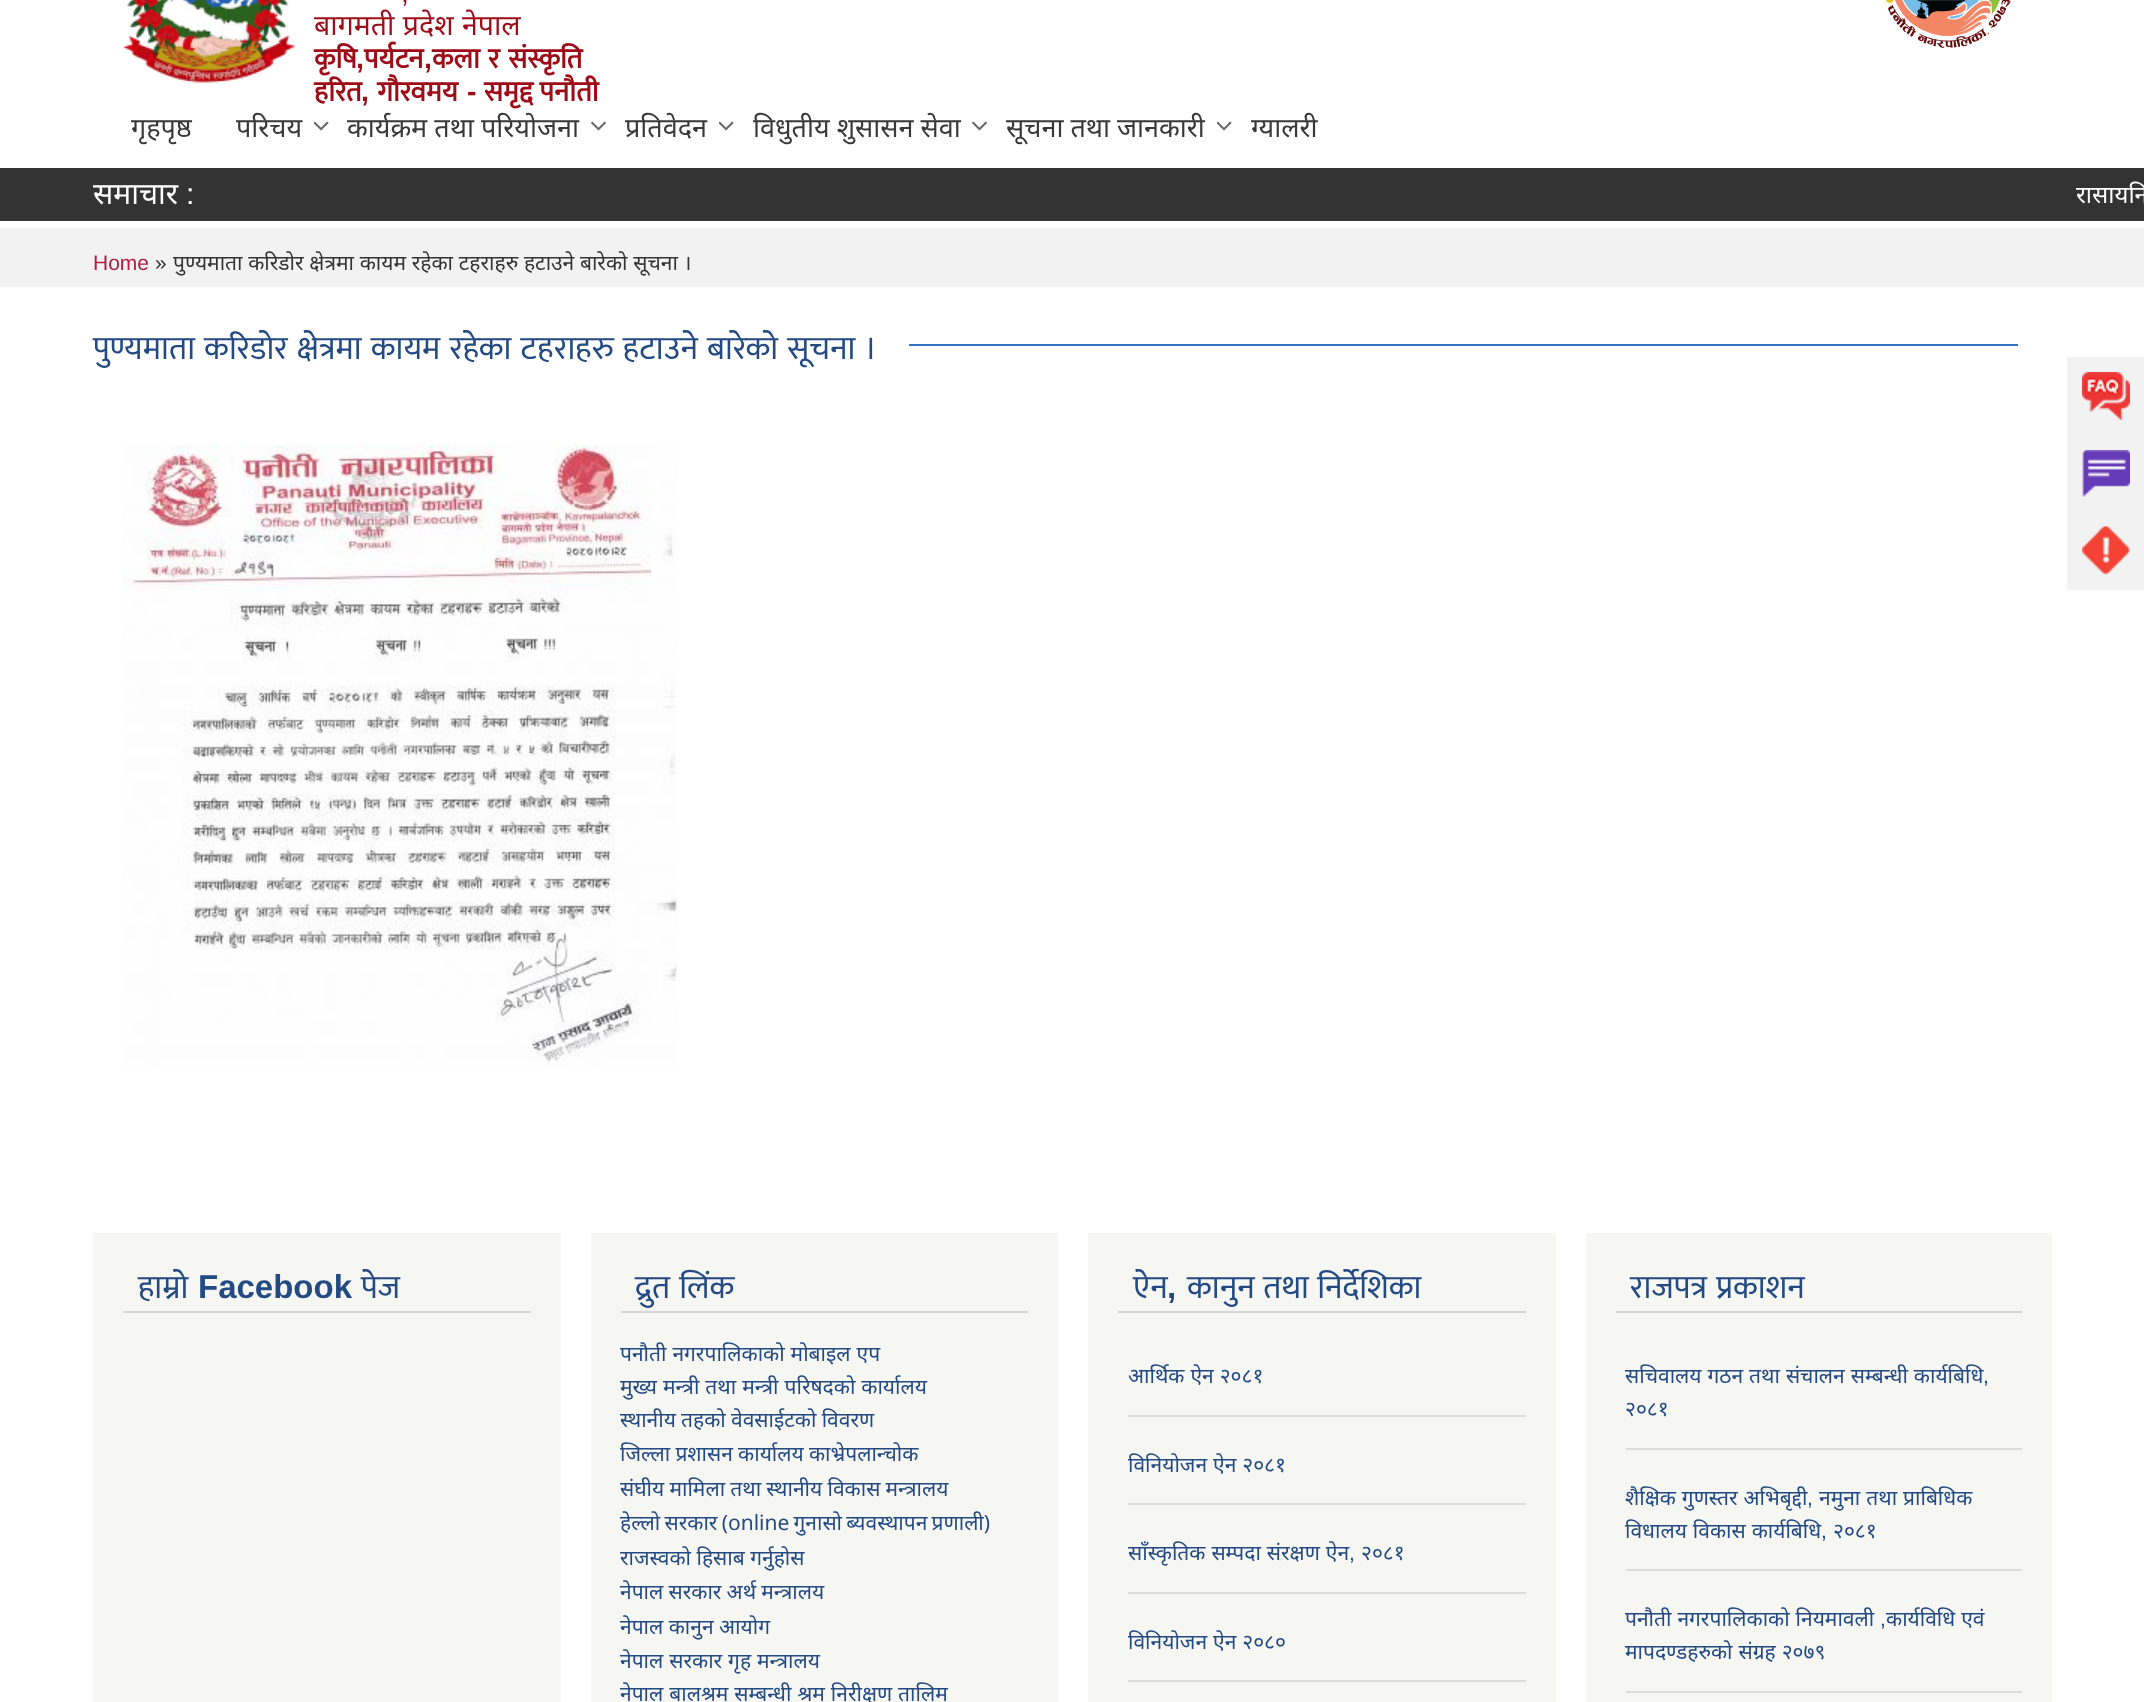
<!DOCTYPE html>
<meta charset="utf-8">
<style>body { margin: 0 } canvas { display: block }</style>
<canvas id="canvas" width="2144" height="1702"></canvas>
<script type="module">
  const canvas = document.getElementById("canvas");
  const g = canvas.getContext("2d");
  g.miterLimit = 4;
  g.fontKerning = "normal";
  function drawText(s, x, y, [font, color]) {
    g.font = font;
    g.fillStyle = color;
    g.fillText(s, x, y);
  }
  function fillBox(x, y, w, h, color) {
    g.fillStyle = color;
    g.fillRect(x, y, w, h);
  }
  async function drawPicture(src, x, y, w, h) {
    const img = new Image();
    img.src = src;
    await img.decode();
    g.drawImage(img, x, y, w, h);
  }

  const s1 = ["28.5px Liberation Sans", "#9E0C18"];
  const s2 = ["28.5px Noto Sans", "#9E0C18"];
  const s3 = ["bold 28.5px Mukta", "#9E0C18"];
  const s4 = ["bold 28.5px Liberation Sans", "#9E0C18"];
  const s5 = ["27px Noto Sans", "#393939"];
  const s6 = ["30px Noto Sans", "#FFFFFF"];
  const s7 = ["30px Liberation Sans", "#FFFFFF"];
  const s8 = ["24px Noto Sans", "#FFFFFF"];
  const s9 = ["21px Liberation Sans", "#B21C42"];
  const s10 = ["21px Liberation Sans", "#333333"];
  const s11 = ["21px Noto Sans", "#333333"];
  const s12 = ["33px Mukta", "#234A83"];
  const s13 = ["bold 33px Liberation Sans", "#234A83"];
  const s14 = ["21px Noto Sans", "#234A83"];
  const s15 = ["21px Liberation Sans", "#234A83"];

  fillBox(0, 0, 2144, 1702, "#FFFFFF");
  await drawPicture("pic1.png", 123, 0, 173, 83);
  drawText(",", 401, 2, s1);
  g.wordSpacing = "1px";
  drawText("बागमती प्रदेश नेपाल", 314, 35, s2);
  g.wordSpacing = "0px";
  drawText("कृषि", 314, 68, s3);
  drawText(",", 356, 68, s4);
  drawText("पर्यटन", 364, 68, s3);
  drawText(",", 424, 68, s4);
  g.wordSpacing = "2px";
  drawText("कला र संस्कृति", 432, 68, s3);
  g.wordSpacing = "0px";
  drawText("हरित", 314, 101, s3);
  drawText("गौरवमय", 377, 101, s3);
  drawText("-", 467, 101, s4);
  drawText("समृद्द पनौती", 484, 101, s3);
  drawText(",", 361, 101, s4);
  await drawPicture("pic2.png", 1886, 0, 125, 48);
  drawText("गृहपृष्ठ", 131, 137, s5);
  drawText("परिचय", 236, 137, s5);
  await drawPicture("pic3.png", 314, 121, 15, 10);
  drawText("कार्यक्रम तथा परियोजना", 347, 137, s5);
  await drawPicture("pic4.png", 591, 121, 15, 10);
  drawText("प्रतिवेदन", 625, 137, s5);
  await drawPicture("pic3.png", 719, 121, 15, 10);
  drawText("विधुतीय शुसासन सेवा", 753, 137, s5);
  await drawPicture("pic4.png", 972, 121, 15, 10);
  drawText("सूचना तथा जानकारी", 1006, 137, s5);
  await drawPicture("pic3.png", 1217, 121, 15, 10);
  drawText("ग्यालरी", 1251, 137, s5);
  fillBox(0, 168, 2144, 53, "#333333");
  drawText("समाचार", 93, 204, s6);
  drawText(":", 186, 204, s7);
  drawText("रासायनि", 2076, 203, s8);
  fillBox(0, 228, 2144, 59, "#F2F2F2");
  drawText("Home", 93, 270, s9);
  drawText("»", 155, 270, s10);
  g.wordSpacing = "0.25px";
  drawText("पुण्यमाता करिडोर क्षेत्रमा कायम रहेका टहराहरु हटाउने बारेको सूचना ।", 173, 270, s11);
  g.wordSpacing = "1.75px";
  drawText("पुण्यमाता करिडोर क्षेत्रमा कायम रहेका टहराहरु हटाउने बारेको सूचना ।", 93, 359, s12);
  fillBox(909, 344, 1109, 2, "#376FC2");
  await drawPicture("pic5.png", 123, 444, 554, 623);
  fillBox(93, 1233, 468, 469, "#F6F6F2");
  fillBox(123, 1311, 408, 2, "#D6D6D6");
  g.wordSpacing = "0px";
  drawText("हाम्रो", 138, 1298, s12);
  drawText("Facebook", 198, 1298, s13);
  drawText("पेज", 361, 1298, s12);
  fillBox(591, 1233, 467, 469, "#F6F6F2");
  fillBox(621, 1311, 407, 2, "#D6D6D6");
  g.wordSpacing = "1.75px";
  drawText("द्रुत लिंक", 635, 1298, s12);
  g.wordSpacing = "0.5px";
  drawText("पनौती नगरपालिकाको मोबाइल एप", 620, 1361, s14);
  drawText("मुख्य मन्त्री तथा मन्त्री परिषदको कार्यालय", 620, 1394, s14);
  g.wordSpacing = "-0.25px";
  drawText("स्थानीय तहको वेवसाईटको विवरण", 620, 1427, s14);
  drawText("जिल्ला प्रशासन कार्यालय काभ्रेपलान्चोक", 620, 1461, s14);
  drawText("संघीय मामिला तथा स्थानीय विकास मन्त्रालय", 620, 1496, s14);
  g.wordSpacing = "-1.25px";
  drawText("हेल्लो सरकार (online गुनासो ब्यवस्थापन प्रणाली)", 620, 1530, s14);
  g.wordSpacing = "0px";
  drawText("राजस्वको हिसाब गर्नुहोस", 620, 1565, s14);
  g.wordSpacing = "-0.25px";
  drawText("नेपाल सरकार अर्थ मन्त्रालय", 620, 1599, s14);
  g.wordSpacing = "0px";
  drawText("नेपाल कानुन आयोग", 620, 1634, s14);
  g.wordSpacing = "0.5px";
  drawText("नेपाल सरकार गृह मन्त्रालय", 620, 1668, s14);
  drawText("नेपाल बालश्रम सम्बन्धी श्रम निरीक्षण तालिम", 620, 1701, s14);
  fillBox(1088, 1233, 468, 469, "#F6F6F2");
  fillBox(1118, 1311, 408, 2, "#D6D6D6");
  g.wordSpacing = "0px";
  drawText("ऐन", 1133, 1298, s12);
  drawText(",", 1167, 1298, s13);
  g.wordSpacing = "1px";
  drawText("कानुन तथा निर्देशिका", 1187, 1298, s12);
  fillBox(1128, 1415, 398, 2, "#DADDD8");
  g.wordSpacing = "0.5px";
  drawText("आर्थिक ऐन २०८१", 1128, 1383, s14);
  fillBox(1128, 1503, 398, 2, "#DADDD8");
  drawText("विनियोजन ऐन २०८१", 1128, 1472, s14);
  fillBox(1128, 1592, 398, 2, "#DADDD8");
  drawText("साँस्कृतिक सम्पदा संरक्षण ऐन", 1128, 1560, s14);
  g.wordSpacing = "0px";
  drawText(",", 1349, 1560, s15);
  drawText("२०८१", 1361, 1560, s14);
  fillBox(1128, 1680, 398, 2, "#DADDD8");
  g.wordSpacing = "0.5px";
  drawText("विनियोजन ऐन २०८०", 1128, 1649, s14);
  fillBox(1586, 1233, 466, 469, "#F6F6F2");
  fillBox(1616, 1311, 406, 2, "#D6D6D6");
  g.wordSpacing = "1.75px";
  drawText("राजपत्र प्रकाशन", 1630, 1298, s12);
  fillBox(1626, 1448, 396, 2, "#DADDD8");
  g.wordSpacing = "0.5px";
  drawText("सचिवालय गठन तथा संचालन सम्बन्धी कार्यबिधि", 1625, 1383, s14);
  g.wordSpacing = "0px";
  drawText(",", 1983, 1383, s15);
  drawText("२०८१", 1625, 1416, s14);
  fillBox(1626, 1569, 396, 2, "#DADDD8");
  g.wordSpacing = "0.5px";
  drawText("शैक्षिक गुणस्तर अभिबृद्दी", 1625, 1505, s14);
  g.wordSpacing = "0px";
  drawText(",", 1807, 1505, s15);
  g.wordSpacing = "0.5px";
  drawText("नमुना तथा प्राबिधिक", 1819, 1505, s14);
  drawText("विधालय विकास कार्यबिधि", 1625, 1538, s14);
  g.wordSpacing = "0px";
  drawText(",", 1821, 1538, s15);
  drawText("२०८१", 1833, 1538, s14);
  fillBox(1626, 1691, 396, 2, "#DADDD8");
  g.wordSpacing = "0.5px";
  drawText("पनौती नगरपालिकाको नियमावली", 1625, 1626, s14);
  g.wordSpacing = "0px";
  drawText(",", 1880, 1626, s15);
  g.wordSpacing = "0.5px";
  drawText("कार्यविधि एवं", 1886, 1626, s14);
  drawText("मापदण्डहरुको संग्रह २०७९", 1625, 1659, s14);
  fillBox(2067, 357, 77, 233, "#F2F2F2");
  await drawPicture("pic6.png", 2082, 372, 48, 48);
  await drawPicture("pic7.png", 2082, 450, 48, 47);
  await drawPicture("pic8.png", 2082, 526, 48, 49);
</script>
